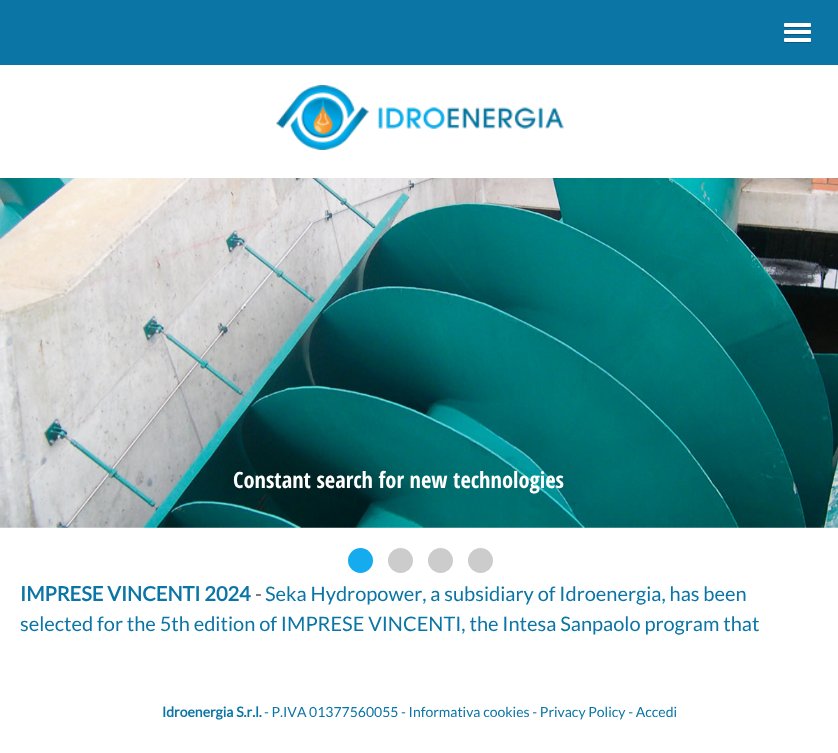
<!DOCTYPE html>
<meta charset="utf-8">
<style>body { margin: 0 } canvas { display: block }</style>
<canvas id="canvas" width="838" height="753"></canvas>
<script type="module">
  const canvas = document.getElementById("canvas");
  const g = canvas.getContext("2d");
  g.miterLimit = 4;
  g.fontKerning = "normal";
  function drawText(s, x, y, [font, color]) {
    g.font = font;
    g.fillStyle = color;
    g.fillText(s, x, y);
  }
  function fillBox(x, y, w, h, color) {
    g.fillStyle = color;
    g.fillRect(x, y, w, h);
  }
  function fillRounded(x, y, w, h, r, color) {
    g.fillStyle = color;
    g.beginPath();
    g.roundRect(x, y, w, h, r);
    g.fill();
  }
  async function drawPicture(src, x, y, w, h) {
    const img = new Image();
    img.src = src;
    await img.decode();
    g.drawImage(img, x, y, w, h);
  }

  const s1 = ["bold 22.5px Open Sans Condensed", "#FFFFFF"];
  const s2 = ["bold 20px Lato", "#0B75A5"];
  const s3 = ["20px Lato", "#555555"];
  const s4 = ["20px Lato", "#0B75A5"];
  const s5 = ["bold 14px Lato", "#0B75A5"];
  const s6 = ["14px Lato", "#0B75A5"];

  fillBox(0, 0, 838, 753, "#FFFFFF");
  fillBox(0, 0, 838, 65, "#0B75A5");
  g.fillStyle = "#08587C";
  g.beginPath();
  g.moveTo(784, 26);
  g.bezierCurveTo(784, 29, 785.5, 28, 789, 28);
  g.lineTo(806, 28);
  g.bezierCurveTo(809.5, 28, 811, 29, 811, 26);
  g.lineTo(810, 26);
  g.lineTo(785, 26);
  g.closePath();
  g.fill();
  fillRounded(784, 23, 27, 4, 1, "#FFFFFF");
  g.fillStyle = "#08587C";
  g.beginPath();
  g.moveTo(784, 33.5);
  g.bezierCurveTo(784, 36, 786.5, 35, 789, 35);
  g.lineTo(806, 35);
  g.bezierCurveTo(808.5, 35, 811, 36, 811, 33.5);
  g.lineTo(810, 33.5);
  g.lineTo(785, 33.5);
  g.closePath();
  g.fill();
  fillRounded(784, 30, 27, 4, 1, "#FFFFFF");
  g.fillStyle = "#08587C";
  g.beginPath();
  g.moveTo(784, 41);
  g.bezierCurveTo(784, 44, 785.5, 43, 789, 43);
  g.lineTo(806, 43);
  g.bezierCurveTo(809.5, 43, 811, 44, 811, 41);
  g.lineTo(810, 41);
  g.lineTo(785, 41);
  g.closePath();
  g.fill();
  fillRounded(784, 38, 27, 4, 1, "#FFFFFF");
  await drawPicture("pic1.png", 276, 85, 288, 65);
  await drawPicture("pic2.png", 0, 178, 838, 350);
  drawText("Constant search for new technologies", 233, 488, s1);
  g.fillStyle = "#15ABEF";
  g.beginPath();
  g.arc(360.5, 560.5, 12.5, 0, Math.PI * 2);
  g.fill();
  g.fillStyle = "#CCCCCC";
  g.beginPath();
  g.arc(400.5, 560.5, 12.5, 0, Math.PI * 2);
  g.fill();
  g.beginPath();
  g.arc(440.5, 560.5, 12.5, 0, Math.PI * 2);
  g.fill();
  g.beginPath();
  g.arc(480.5, 560.5, 12.5, 0, Math.PI * 2);
  g.fill();
  drawText("IMPRESE VINCENTI 2024", 20, 601, s2);
  drawText("-", 255, 601, s3);
  drawText("Seka Hydropower, a subsidiary of Idroenergia, has been", 265, 601, s4);
  drawText("selected for the 5th edition of IMPRESE VINCENTI, the Intesa Sanpaolo program that", 20, 631, s4);
  drawText("Idroenergia S.r.l.", 162, 717, s5);
  drawText("- P.IVA 01377560055 - Informativa cookies - Privacy Policy - Accedi", 264, 717, s6);
</script>
